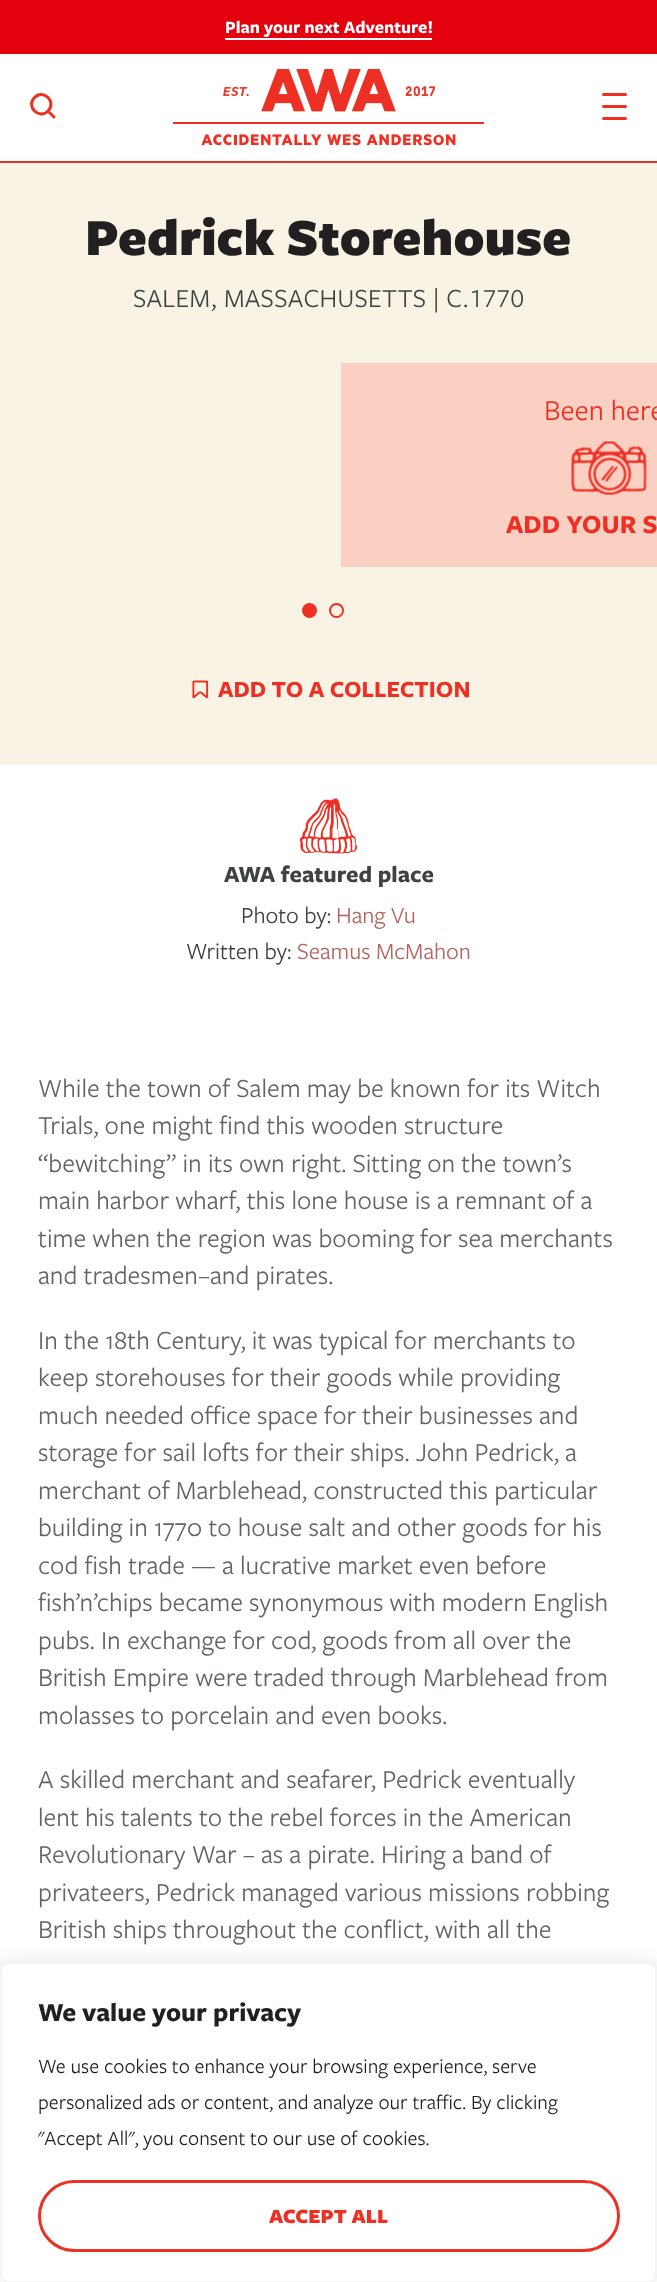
<!DOCTYPE html>
<meta charset="utf-8">
<style>body { margin: 0 } canvas { display: block }</style>
<canvas id="canvas" width="657" height="2282"></canvas>
<script type="module">
  const canvas = document.getElementById("canvas");
  const g = canvas.getContext("2d");
  g.miterLimit = 4;
  g.fontKerning = "normal";
  function drawText(s, x, y, [font, color]) {
    g.font = font;
    g.fillStyle = color;
    g.fillText(s, x, y);
  }
  function fillBox(x, y, w, h, color) {
    g.fillStyle = color;
    g.fillRect(x, y, w, h);
  }
  function fillRounded(x, y, w, h, r, color) {
    g.fillStyle = color;
    g.beginPath();
    g.roundRect(x, y, w, h, r);
    g.fill();
  }
  async function drawPicture(src, x, y, w, h) {
    const img = new Image();
    img.src = src;
    await img.decode();
    g.drawImage(img, x, y, w, h);
  }

  const s1 = ["bold 18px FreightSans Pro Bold", "#FFFFFF"];
  const s2 = ["900 54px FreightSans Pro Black", "#231F20"];
  const s3 = ["27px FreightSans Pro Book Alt", "#3E4240"];
  const s4 = ["30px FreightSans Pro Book", "#EE3024"];
  const s5 = ["bold 27px FreightSans Pro Bold", "#EE3024"];
  const s6 = ["bold 24px FreightSans Pro Bold", "#EE3024"];
  const s7 = ["bold 24px FreightSans Pro Bold", "#3E4240"];
  const s8 = ["24px FreightSans Pro Book", "#3E4240"];
  const s9 = ["24px FreightSans Pro Book", "#B5635E"];
  const s10 = ["27px FreightSans Pro Book", "#616563"];
  const s11 = ["bold 27px FreightSans Pro Bold", "#231F20"];
  const s12 = ["21px FreightSans Pro Book", "#231F20"];
  const s13 = ["900 21px FreightSans Pro Black", "#EE3024"];

  fillBox(0, 0, 657, 2282, "#FFFFFF");
  fillBox(0, 0, 657, 54, "#E2010D");
  drawText("Plan your next Adventure!", 225, 33, s1);
  fillBox(225, 38, 207, 2, "#FFFFFF");
  fillBox(0, 161, 657, 2, "#EE3024");
  g.beginPath();
  g.moveTo(34.5, 97.5);
  g.bezierCurveTo(43.5, 88.5, 57, 102, 48, 111);
  g.bezierCurveTo(39, 120, 25.5, 106.5, 34.5, 97.5);
  g.closePath();
  g.strokeStyle = "#EE3024";
  g.lineWidth = 3;
  g.stroke();
  g.beginPath();
  g.moveTo(54, 117);
  g.lineTo(49.5, 112.5);
  g.lineCap = "round";
  g.lineJoin = "bevel";
  g.stroke();
  await drawPicture("pic1.png", 173, 69, 311, 77);
  fillRounded(602, 93, 25, 3, 1.5, "#EE3024");
  fillRounded(602, 105, 25, 3, 1.5, "#EE3024");
  fillRounded(602, 117, 25, 3, 1.5, "#EE3024");
  fillBox(0, 163, 657, 602, "#F8F3E4");
  drawText("Pedrick Storehouse", 85, 255, s2);
  g.letterSpacing = "0.3px";
  drawText("SALEM, MASSACHUSETTS | C.1770", 133, 307, s3);
  fillBox(341, 363, 316, 204, "#FAD0C3");
  g.letterSpacing = "0px";
  drawText("Been here", 544, 420, s4);
  await drawPicture("pic2.png", 571, 441, 76, 55);
  drawText("ADD YOUR S", 506, 533, s5);
  g.beginPath();
  g.arc(309.5, 610.5, 6.5, 0, Math.PI * 2);
  g.fill();
  g.lineWidth = 2;
  g.stroke();
  g.beginPath();
  g.arc(336.5, 610.5, 6.5, 0, Math.PI * 2);
  g.stroke();
  await drawPicture("pic3.png", 192, 680, 17, 19);
  drawText("ADD TO A COLLECTION", 218, 697, s6);
  await drawPicture("pic4.png", 299, 798, 58, 56);
  drawText("AWA featured place", 224, 882, s7);
  drawText("Photo by:", 241, 923, s8);
  drawText("Hang Vu", 336, 923, s9);
  drawText("Written by:", 186, 959, s8);
  drawText("Seamus McMahon", 297, 959, s9);
  drawText("While the town of Salem may be known for its Witch", 38, 1097, s10);
  drawText("Trials, one might find this wooden structure", 38, 1134, s10);
  drawText("“bewitching” in its own right. Sitting on the town’s", 38, 1172, s10);
  drawText("main harbor wharf, this lone house is a remnant of a", 38, 1209, s10);
  drawText("time when the region was booming for sea merchants", 38, 1247, s10);
  drawText("and tradesmen–and pirates.", 38, 1284, s10);
  drawText("In the 18th Century, it was typical for merchants to", 38, 1349, s10);
  drawText("keep storehouses for their goods while providing", 38, 1386, s10);
  drawText("much needed office space for their businesses and", 38, 1424, s10);
  drawText("storage for sail lofts for their ships. John Pedrick, a", 38, 1461, s10);
  drawText("merchant of Marblehead, constructed this particular", 38, 1499, s10);
  drawText("building in 1770 to house salt and other goods for his", 38, 1536, s10);
  drawText("cod fish trade — a lucrative market even before", 38, 1574, s10);
  drawText("fish’n’chips became synonymous with modern English", 38, 1611, s10);
  drawText("pubs. In exchange for cod, goods from all over the", 38, 1649, s10);
  drawText("British Empire were traded through Marblehead from", 38, 1686, s10);
  drawText("molasses to porcelain and even books.", 38, 1724, s10);
  drawText("A skilled merchant and seafarer, Pedrick eventually", 38, 1788, s10);
  drawText("lent his talents to the rebel forces in the American", 38, 1826, s10);
  drawText("Revolutionary War – as a pirate. Hiring a band of", 38, 1863, s10);
  drawText("privateers, Pedrick managed various missions robbing", 38, 1901, s10);
  drawText("British ships throughout the conflict, with all the", 38, 1938, s10);
  g.fillStyle = "rgba(172, 171, 171, 0.3)";
  g.filter = "blur(7.5px)";
  g.beginPath();
  g.roundRect(0, 1961, 657, 321, 9);
  g.fill();
  g.filter = "none";
  g.fillStyle = "#FFFFFF";
  g.beginPath();
  g.roundRect(1, 1963, 655, 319, 8);
  g.fill();
  g.strokeStyle = "#F4F4F4";
  g.lineJoin = "miter";
  g.stroke();
  drawText("We value your privacy", 38, 2021, s11);
  drawText("We use cookies to enhance your browsing experience, serve", 38, 2073, s12);
  drawText("personalized ads or content, and analyze our traffic. By clicking", 38, 2109, s12);
  drawText("\"Accept All\", you consent to our use of cookies.", 38, 2145, s12);
  g.beginPath();
  g.roundRect(39.5, 2181.5, 579, 69, 34.5);
  g.strokeStyle = "#EE3024";
  g.lineWidth = 3;
  g.stroke();
  drawText("ACCEPT ALL", 269, 2223, s13);
</script>
